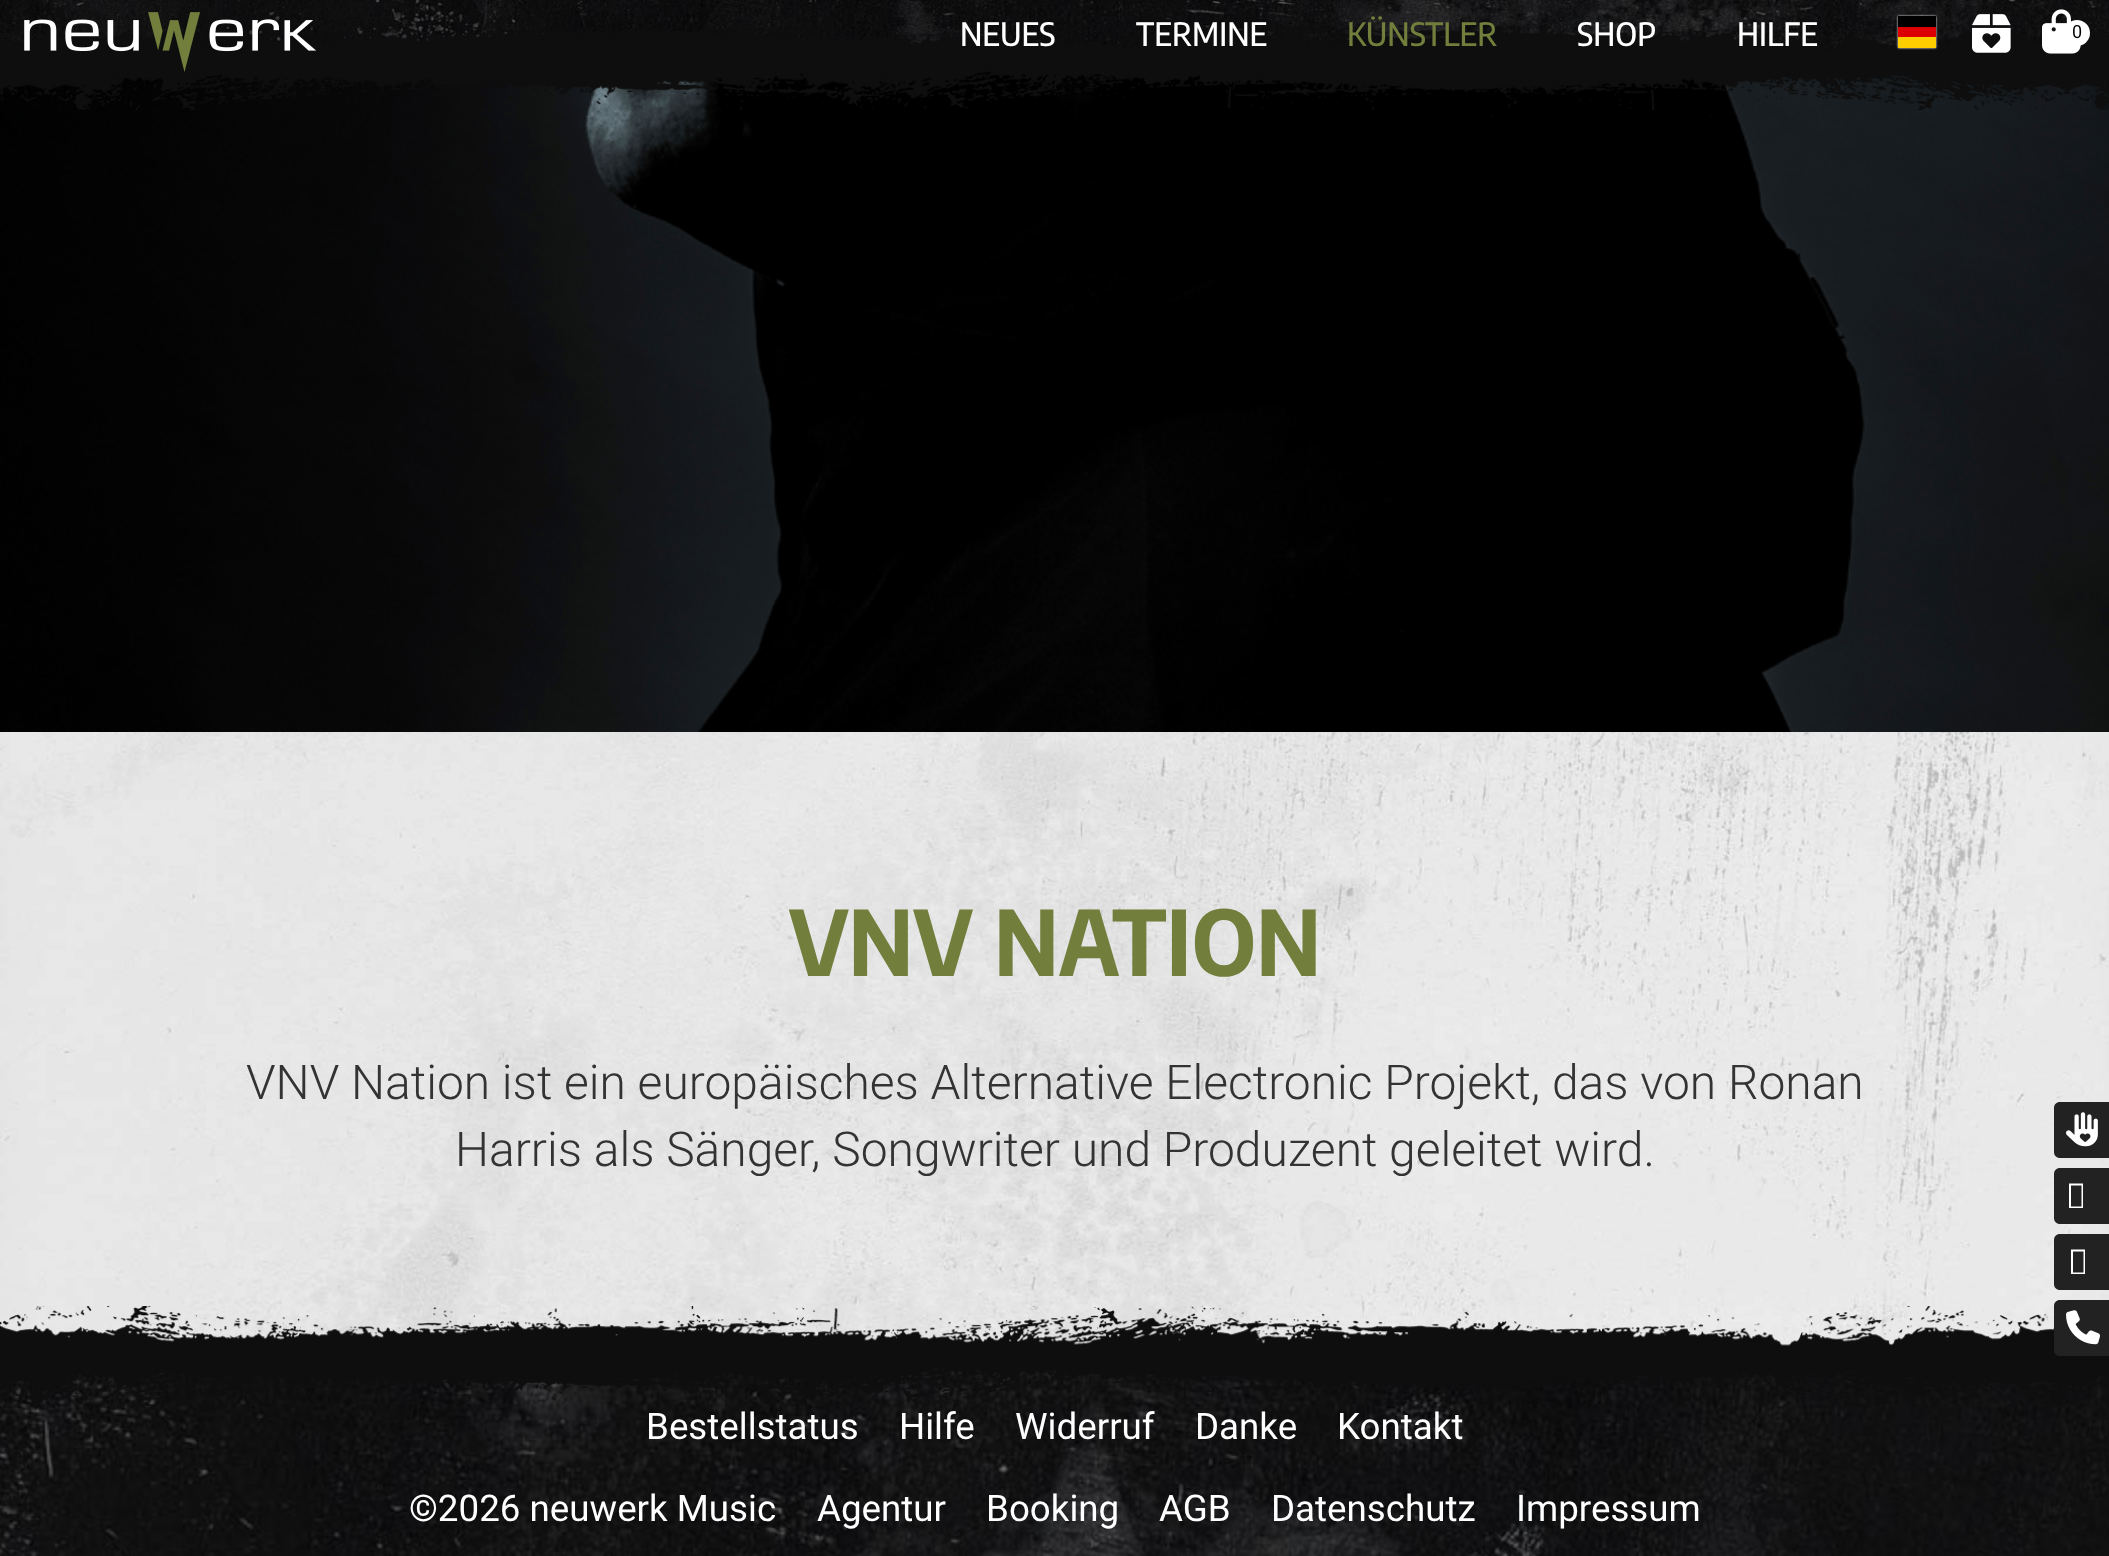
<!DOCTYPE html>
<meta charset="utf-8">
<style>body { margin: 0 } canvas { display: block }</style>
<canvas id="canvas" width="2109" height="1556"></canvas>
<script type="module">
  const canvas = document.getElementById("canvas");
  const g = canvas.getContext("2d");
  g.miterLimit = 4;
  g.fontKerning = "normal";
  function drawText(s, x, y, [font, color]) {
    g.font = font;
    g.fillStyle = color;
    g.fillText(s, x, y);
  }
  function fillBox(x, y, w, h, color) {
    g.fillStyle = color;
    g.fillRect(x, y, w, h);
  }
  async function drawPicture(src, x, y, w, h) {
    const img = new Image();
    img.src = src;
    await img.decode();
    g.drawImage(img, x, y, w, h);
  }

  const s1 = ["500 32px Encode Sans Semi Condensed", "#FFFFFF"];
  const s2 = ["500 32px Encode Sans Semi Condensed", "#717E3C"];
  const s3 = ["18px Roboto", "#000000"];
  const s4 = ["bold 90px Encode Sans Semi Condensed", "#717E3C"];
  const s5 = ["300 48px Roboto", "#333333"];
  const s6 = ["36.75px Roboto", "#FFFFFF"];

  fillBox(0, 0, 2109, 1556, "#FFFFFF");
  await drawPicture("pic1.png", 0, 732, 2109, 614);
  await drawPicture("pic2.png", 0, 0, 2109, 64);
  await drawPicture("pic9.png", 0, 71, 2109, 661);
  g.save();
  g.beginPath();
  g.rect(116, 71, 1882, 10);
  g.clip();
  g.fillStyle = "rgba(0, 0, 0, 0.15)";
  g.filter = "blur(10px)";
  g.beginPath();
  g.rect(0, 0, 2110, 70);
  g.fill();
  g.filter = "none";
  g.restore();
  await drawPicture("pic3.png", 0, 10, 2109, 100);
  await drawPicture("pic4.png", 24, 12, 292, 60);
  drawText("NEUES", 960, 46, s1);
  drawText("TERMINE", 1136, 46, s1);
  drawText("KÜNSTLER", 1347, 46, s2);
  drawText("SHOP", 1577, 46, s1);
  drawText("HILFE", 1737, 46, s1);
  g.filter = "blur(1px)";
  g.beginPath();
  g.rect(1898, 16, 38, 32);
  g.fill();
  g.filter = "none";
  fillBox(1898, 37, 38, 11, "#FFCE00");
  fillBox(1898, 16, 38, 11, "#000000");
  fillBox(1898, 27, 38, 10, "#DD0000");
  g.fillStyle = "#222222";
  g.beginPath();
  g.moveTo(2060, 1102);
  g.lineTo(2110, 1102);
  g.lineTo(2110, 1158);
  g.lineTo(2060, 1158);
  g.bezierCurveTo(2056.5, 1158, 2054, 1155.5, 2054, 1152);
  g.lineTo(2054, 1108);
  g.bezierCurveTo(2054, 1104.5, 2056.5, 1102, 2060, 1102);
  g.closePath();
  g.fill();
  await drawPicture("pic5.png", 2066, 1112, 32, 35);
  g.beginPath();
  g.moveTo(2060, 1168);
  g.lineTo(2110, 1168);
  g.lineTo(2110, 1224);
  g.lineTo(2060, 1224);
  g.bezierCurveTo(2056.5, 1224, 2054, 1221.5, 2054, 1218);
  g.lineTo(2054, 1174);
  g.bezierCurveTo(2054, 1170.5, 2056.5, 1168, 2060, 1168);
  g.closePath();
  g.fill();
  g.fillStyle = "#FFFFFF";
  g.beginPath();
  g.moveTo(2069, 1208);
  g.lineTo(2069, 1183.5);
  g.lineTo(2083, 1183.5);
  g.lineTo(2083, 1208);
  g.closePath();
  g.moveTo(2071, 1206.5);
  g.lineTo(2081.5, 1206.5);
  g.lineTo(2081.5, 1185.5);
  g.lineTo(2071, 1185.5);
  g.closePath();
  g.fill();
  g.fillStyle = "#222222";
  g.beginPath();
  g.moveTo(2060, 1234);
  g.lineTo(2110, 1234);
  g.lineTo(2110, 1290);
  g.lineTo(2060, 1290);
  g.bezierCurveTo(2056.5, 1290, 2054, 1287.5, 2054, 1284);
  g.lineTo(2054, 1240);
  g.bezierCurveTo(2054, 1236.5, 2056.5, 1234, 2060, 1234);
  g.closePath();
  g.fill();
  g.fillStyle = "#FFFFFF";
  g.beginPath();
  g.moveTo(2071, 1274);
  g.lineTo(2071, 1249.5);
  g.lineTo(2085, 1249.5);
  g.lineTo(2085, 1274);
  g.closePath();
  g.moveTo(2073, 1272.5);
  g.lineTo(2083.5, 1272.5);
  g.lineTo(2083.5, 1251.5);
  g.lineTo(2073, 1251.5);
  g.closePath();
  g.fill();
  await drawPicture("pic10.png", 0, 1352, 2109, 204);
  await drawPicture("pic11.png", 0, 1306, 2109, 100);
  g.fillStyle = "#222222";
  g.beginPath();
  g.moveTo(2060, 1300);
  g.lineTo(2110, 1300);
  g.lineTo(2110, 1356);
  g.lineTo(2060, 1356);
  g.bezierCurveTo(2056.5, 1356, 2054, 1353.5, 2054, 1350);
  g.lineTo(2054, 1306);
  g.bezierCurveTo(2054, 1302.5, 2056.5, 1300, 2060, 1300);
  g.closePath();
  g.fill();
  await drawPicture("pic6.png", 2066, 1310, 34, 35);
  await drawPicture("pic7.png", 1972, 14, 39, 39);
  await drawPicture("pic8.png", 2042, 9, 39, 45);
  g.fillStyle = "#FFFFFF";
  g.beginPath();
  g.arc(2077, 33, 13, 0, Math.PI * 2);
  g.fill();
  drawText("0", 2072, 38, s3);
  drawText("VNV NATION", 789, 976, s4);
  drawText("VNV Nation ist ein europäisches Alternative Electronic Projekt, das von Ronan", 246, 1099, s5);
  drawText("Harris als Sänger, Songwriter und Produzent geleitet wird.", 455, 1166, s5);
  drawText("Bestellstatus", 646, 1439, s6);
  drawText("Hilfe", 899, 1439, s6);
  drawText("Widerruf", 1015, 1439, s6);
  drawText("Danke", 1195, 1439, s6);
  drawText("Kontakt", 1337, 1439, s6);
  drawText("©2026 neuwerk Music", 409, 1521, s6);
  drawText("Agentur", 817, 1521, s6);
  drawText("Booking", 986, 1521, s6);
  drawText("AGB", 1159, 1521, s6);
  drawText("Datenschutz", 1271, 1521, s6);
  drawText("Impressum", 1516, 1521, s6);
</script>
